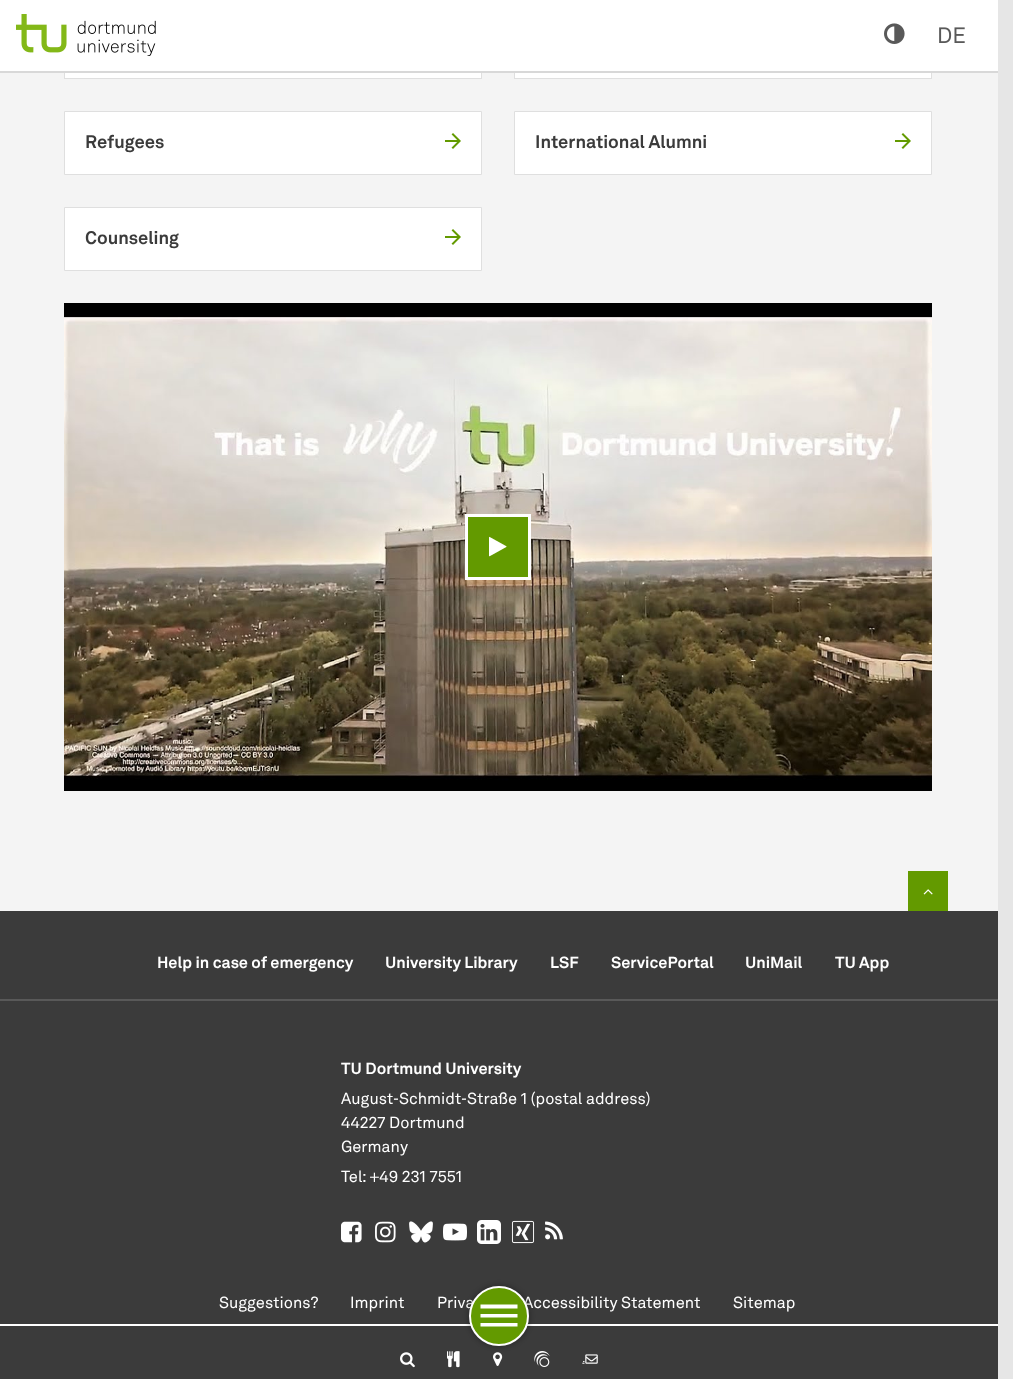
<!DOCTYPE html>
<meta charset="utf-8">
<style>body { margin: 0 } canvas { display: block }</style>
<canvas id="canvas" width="1013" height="1379"></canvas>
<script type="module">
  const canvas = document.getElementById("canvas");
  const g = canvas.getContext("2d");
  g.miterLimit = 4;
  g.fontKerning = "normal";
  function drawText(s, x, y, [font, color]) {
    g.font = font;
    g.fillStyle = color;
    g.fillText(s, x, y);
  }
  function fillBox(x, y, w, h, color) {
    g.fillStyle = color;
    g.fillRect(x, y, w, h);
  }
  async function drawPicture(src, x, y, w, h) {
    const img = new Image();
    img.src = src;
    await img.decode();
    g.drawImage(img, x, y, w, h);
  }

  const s1 = ["bold 18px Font", "#3B3B3B"];
  const s2 = ["bold 16px Font", "#FFFFFF"];
  const s3 = ["16px Font", "#FFFFFF"];

  fillBox(0, 0, 1013, 1379, "#E6E6E6");
  fillBox(0, 73, 998, 838, "#F4F4F4");
  fillBox(65, 73, 416, 5, "#FFFFFF");
  g.strokeStyle = "#DFDFDF";
  g.strokeRect(64.5, 15.5, 417, 63);
  fillBox(515, 73, 416, 5, "#FFFFFF");
  g.strokeRect(514.5, 15.5, 417, 63);
  fillBox(0, 0, 998, 71, "#FFFFFF");
  fillBox(0, 71, 998, 2, "#D8D8D8");
  await drawPicture("pic1.png", 16, 14, 140, 42);
  await drawPicture("pic2.png", 884, 23, 21, 21);
  await drawPicture("pic3.png", 939, 27, 26, 16);
  g.fillStyle = "#FFFFFF";
  g.beginPath();
  g.rect(64.5, 111.5, 417, 63);
  g.fill();
  g.stroke();
  drawText("Refugees", 85, 148, s1);
  await drawPicture("pic4.png", 445, 133, 16, 16);
  g.fillStyle = "#FFFFFF";
  g.beginPath();
  g.rect(514.5, 111.5, 417, 63);
  g.fill();
  g.stroke();
  drawText("International Alumni", 535, 148, s1);
  await drawPicture("pic4.png", 895, 133, 16, 16);
  g.fillStyle = "#FFFFFF";
  g.beginPath();
  g.rect(64.5, 207.5, 417, 63);
  g.fill();
  g.stroke();
  drawText("Counseling", 85, 244, s1);
  await drawPicture("pic4.png", 445, 229, 16, 16);
  await drawPicture("pic5.png", 64, 303, 868, 488);
  g.fillStyle = "#639A00";
  g.beginPath();
  g.rect(466.5, 515.5, 63, 63);
  g.fill();
  g.strokeStyle = "#FFFFFF";
  g.lineWidth = 3;
  g.stroke();
  await drawPicture("pic6.png", 489, 536, 18, 21);
  fillBox(908, 871, 40, 40, "#639A00");
  await drawPicture("pic7.png", 923, 889, 10, 6);
  fillBox(0, 911, 998, 413, "#3B3B3B");
  drawText("Help in case of emergency", 157, 968, s2);
  drawText("University Library", 385, 968, s2);
  drawText("LSF", 550, 968, s2);
  drawText("ServicePortal", 611, 968, s2);
  drawText("UniMail", 745, 968, s2);
  drawText("TU App", 835, 968, s2);
  fillBox(0, 999, 998, 2, "#595959");
  drawText("TU Dortmund University", 341, 1074, s2);
  drawText("August-Schmidt-Straße 1 (postal address)", 341, 1104, s3);
  drawText("44227 Dortmund", 341, 1128, s3);
  drawText("Germany", 341, 1152, s3);
  drawText("Tel: +49 231 7551", 341, 1182, s3);
  await drawPicture("pic8.png", 341, 1221, 21, 22);
  await drawPicture("pic9.png", 375, 1221, 21, 22);
  await drawPicture("pic10.png", 409, 1221, 24, 22);
  await drawPicture("pic11.png", 443, 1223, 24, 18);
  await drawPicture("pic12.png", 477, 1220, 24, 24);
  await drawPicture("pic13.png", 511, 1220, 24, 24);
  await drawPicture("pic14.png", 545, 1221, 18, 19);
  drawText("Suggestions?", 219, 1308, s3);
  drawText("Imprint", 350, 1308, s3);
  drawText("Priva", 437, 1308, s3);
  drawText("Accessibility Statement", 523, 1308, s3);
  drawText("Sitemap", 733, 1308, s3);
  fillBox(0, 1326, 998, 53, "#3B3B3B");
  fillBox(0, 1324, 998, 2, "#FFFFFF");
  await drawPicture("pic17.png", 493, 1352, 10, 14);
  await drawPicture("pic18.png", 534, 1351, 16, 16);
  g.fillStyle = "rgba(0, 0, 0, 0.2)";
  g.filter = "blur(2px)";
  g.beginPath();
  g.roundRect(467, 1284, 64, 64, 32);
  g.fill();
  g.filter = "none";
  g.fillStyle = "#639A00";
  g.beginPath();
  g.arc(499, 1316, 29, 0, Math.PI * 2);
  g.fill();
  g.lineWidth = 2;
  g.stroke();
  g.fillStyle = "#FFFFFF";
  g.beginPath();
  g.moveTo(480.5, 1304.5);
  g.lineTo(517.5, 1304.5);
  g.lineTo(517.5, 1308.5);
  g.lineTo(480.5, 1308.5);
  g.closePath();
  g.moveTo(480.5, 1314);
  g.lineTo(517.5, 1314);
  g.lineTo(517.5, 1317.5);
  g.lineTo(480.5, 1317.5);
  g.closePath();
  g.moveTo(480.5, 1323);
  g.lineTo(517.5, 1323);
  g.lineTo(517.5, 1326.5);
  g.lineTo(480.5, 1326.5);
  g.closePath();
  g.fill();
  await drawPicture("pic15.png", 400, 1352, 15, 16);
  await drawPicture("pic16.png", 447, 1351, 13, 17);
  await drawPicture("pic19.png", 582, 1354, 16, 10);
</script>
